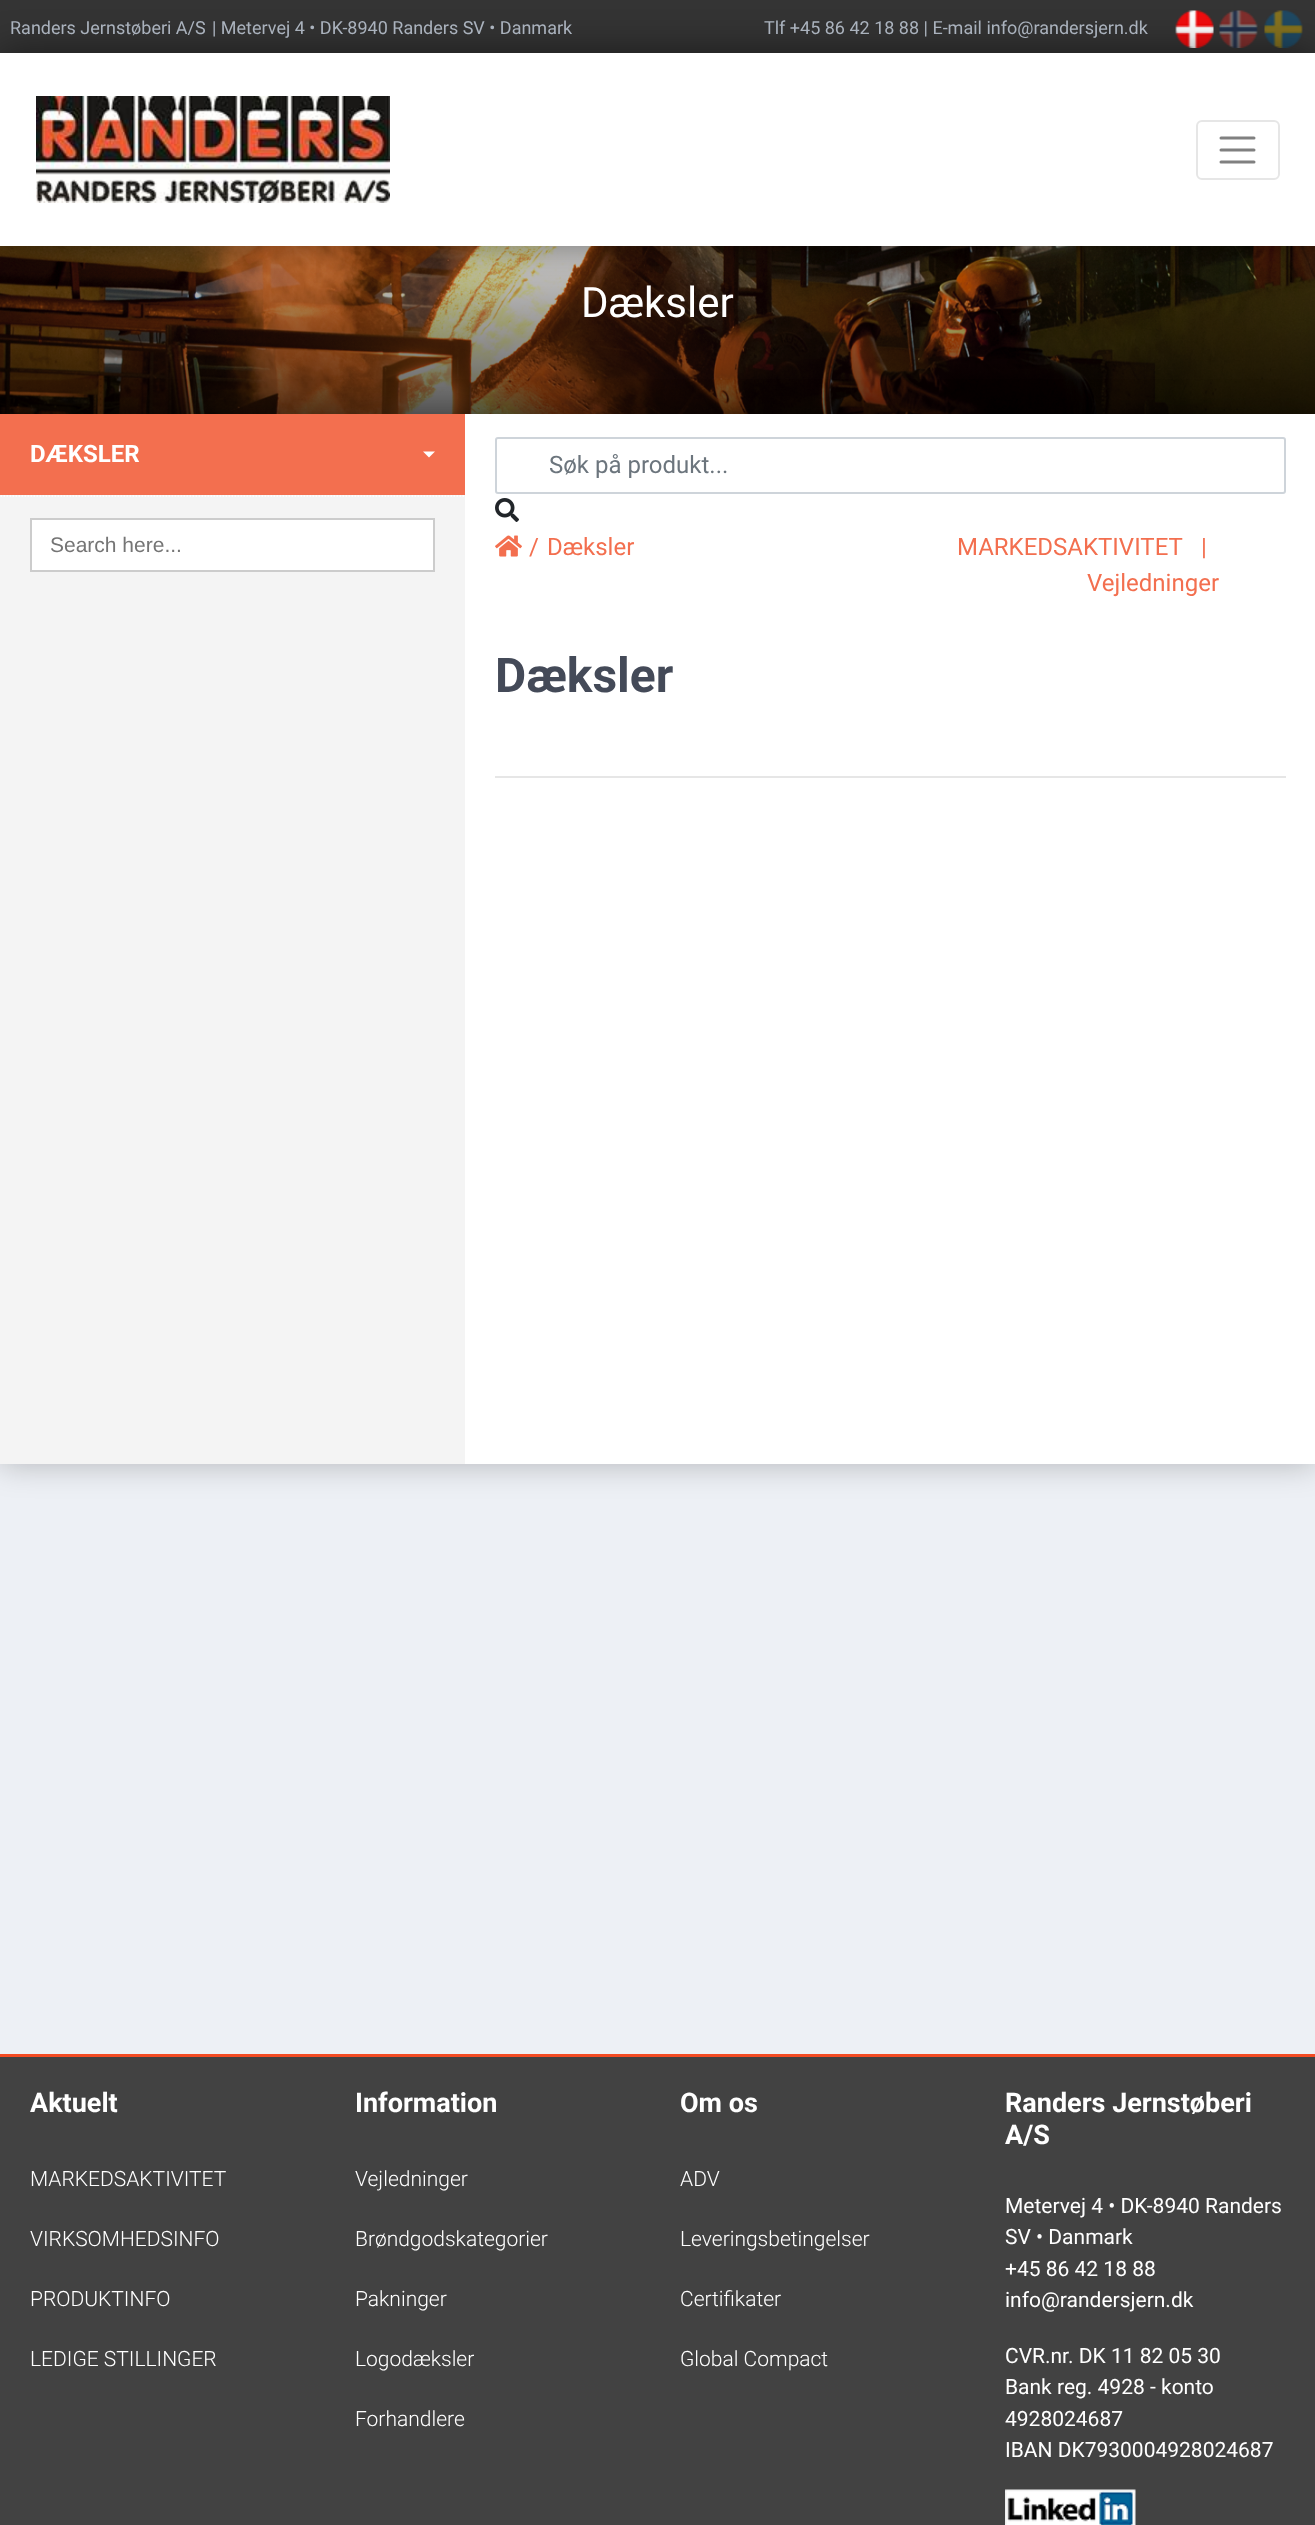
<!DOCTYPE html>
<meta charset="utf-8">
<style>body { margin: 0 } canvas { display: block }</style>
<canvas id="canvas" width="1315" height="2525"></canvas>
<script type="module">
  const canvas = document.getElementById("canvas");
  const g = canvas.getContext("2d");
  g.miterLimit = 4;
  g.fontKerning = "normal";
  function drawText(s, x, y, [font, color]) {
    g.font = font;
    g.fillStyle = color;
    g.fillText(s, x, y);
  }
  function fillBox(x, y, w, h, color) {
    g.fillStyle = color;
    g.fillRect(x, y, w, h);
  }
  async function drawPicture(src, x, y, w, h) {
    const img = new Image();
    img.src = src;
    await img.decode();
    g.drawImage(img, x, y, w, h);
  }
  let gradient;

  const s1 = ["18px Roboto", "#AAB2BD"];
  const s2 = ["42px Roboto", "#FFFFFF"];
  const s3 = ["bold 24px Roboto", "#FFFFFF"];
  const s4 = ["21px Liberation Sans", "#757575"];
  const s5 = ["24px Roboto", "#6C757D"];
  const s6 = ["24px Roboto", "#F36F4F"];
  const s7 = ["bold 48px Roboto", "#444A58"];
  const s8 = ["bold 27px Roboto", "#FFFFFF"];
  const s9 = ["300 21px Roboto", "#FFFFFF"];
  const s10 = ["21px Roboto", "#FFFFFF"];

  fillBox(0, 0, 1315, 2525, "#EDF0F5");
  fillBox(0, 0, 1315, 53, "#343434");
  await drawPicture("pic2.png", 1175, 10, 39, 38);
  await drawPicture("pic3.png", 1219, 10, 39, 38);
  await drawPicture("pic4.png", 1264, 10, 39, 38);
  await drawPicture("pic5.png", 0, 246, 1315, 168);
  gradient = g.createLinearGradient(658, 181, 658, 474);
  gradient.addColorStop(0, "rgba(0, 0, 0, 0)");
  gradient.addColorStop(1, "rgba(0, 0, 0, 0.8)");
  g.fillStyle = gradient;
  g.fillRect(0, 246, 1315, 168);
  g.fillStyle = "rgba(0, 0, 0, 0.5)";
  g.filter = "blur(19px)";
  g.beginPath();
  g.rect(0, 53, 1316, 193);
  g.fill();
  g.filter = "none";
  fillBox(0, 53, 1315, 193, "#FFFFFF");
  await drawPicture("pic1.png", 36, 96, 354, 107);
  g.beginPath();
  g.roundRect(1197, 121, 82, 58, 5);
  g.strokeStyle = "#E6E6E6";
  g.lineWidth = 2;
  g.stroke();
  g.beginPath();
  g.moveTo(1221, 138);
  g.lineTo(1254, 138);
  g.moveTo(1221, 150);
  g.lineTo(1254, 150);
  g.moveTo(1221, 162);
  g.lineTo(1254, 162);
  g.strokeStyle = "#808080";
  g.lineWidth = 3;
  g.lineCap = "round";
  g.stroke();
  drawText("Randers Jernstøberi A/S", 10, 34, s1);
  drawText("| Metervej 4 • DK-8940 Randers SV • Danmark", 212, 34, s1);
  drawText("Tlf +45 86 42 18 88 | E-mail info@randersjern.dk", 764, 34, s1);
  drawText("Dæksler", 581, 317, s2);
  g.fillStyle = "rgba(0, 0, 0, 0.25)";
  g.filter = "blur(16px)";
  g.beginPath();
  g.rect(0, 414, 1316, 1050);
  g.fill();
  g.filter = "none";
  fillBox(465, 414, 850, 1050, "#FFFFFF");
  fillBox(0, 495, 465, 969, "#F4F4F4");
  fillBox(0, 414, 465, 81, "#F36F4F");
  g.save();
  g.beginPath();
  g.rect(0, 414, 465, 1050);
  g.clip();
  g.beginPath();
  g.moveTo(-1, 413);
  g.lineTo(466, 413);
  g.lineTo(466, 496);
  g.lineTo(-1, 496);
  g.closePath();
  g.strokeStyle = "#FFFFFF";
  g.lineWidth = 1.5;
  g.lineCap = "butt";
  g.setLineDash([1.5, 1.5]);
  g.stroke();
  g.restore();
  drawText("DÆKSLER", 30, 462, s3);
  g.beginPath();
  g.moveTo(423, 451.5);
  g.lineTo(435, 451.5);
  g.lineTo(429, 457.5);
  g.closePath();
  g.fill();
  g.beginPath();
  g.rect(31, 519, 403, 52);
  g.fill();
  g.strokeStyle = "#CCCCCC";
  g.lineWidth = 2;
  g.stroke();
  drawText("Search here...", 50, 552, s4);
  g.beginPath();
  g.roundRect(496, 438, 789, 55, 2);
  g.strokeStyle = "#CED4DA";
  g.stroke();
  drawText("Søk på produkt...", 549, 473, s5);
  await drawPicture("pic6.png", 495, 498, 24, 24);
  await drawPicture("pic7.png", 495, 535, 27, 22);
  drawText("/", 529, 555, s6);
  drawText("Dæksler", 547, 555, s6);
  drawText("MARKEDSAKTIVITET", 957, 555, s6);
  drawText("|", 1201, 555, s6);
  drawText("Vejledninger", 1087, 591, s6);
  drawText("Dæksler", 495, 692, s7);
  fillBox(495, 776, 791, 2, "#E6E6E6");
  fillBox(0, 2057, 1315, 468, "#424242");
  fillBox(0, 2054, 1315, 3, "#F34B23");
  drawText("Aktuelt", 30, 2112, s8);
  drawText("MARKEDSAKTIVITET", 30, 2186, s9);
  drawText("VIRKSOMHEDSINFO", 30, 2246, s9);
  drawText("PRODUKTINFO", 30, 2306, s9);
  drawText("LEDIGE STILLINGER", 30, 2366, s9);
  drawText("Information", 355, 2112, s8);
  drawText("Vejledninger", 355, 2186, s9);
  drawText("Brøndgodskategorier", 355, 2246, s9);
  drawText("Pakninger", 355, 2306, s9);
  drawText("Logodæksler", 355, 2366, s9);
  drawText("Forhandlere", 355, 2426, s9);
  drawText("Om os", 680, 2112, s8);
  drawText("ADV", 680, 2186, s9);
  drawText("Leveringsbetingelser", 680, 2246, s9);
  drawText("Certifikater", 680, 2306, s9);
  drawText("Global Compact", 680, 2366, s9);
  drawText("Randers Jernstøberi", 1005, 2112, s8);
  drawText("A/S", 1005, 2144, s8);
  drawText("Metervej 4 • DK-8940 Randers", 1005, 2213, s10);
  drawText("SV • Danmark", 1005, 2244, s10);
  drawText("+45 86 42 18 88", 1005, 2276, s10);
  drawText("info@randersjern.dk", 1005, 2307, s10);
  drawText("CVR.nr. DK 11 82 05 30", 1005, 2363, s10);
  drawText("Bank reg. 4928 - konto", 1005, 2394, s10);
  drawText("4928024687", 1005, 2426, s10);
  drawText("IBAN DK7930004928024687", 1005, 2457, s10);
  await drawPicture("pic8.png", 1005, 2489, 131, 36);
</script>
